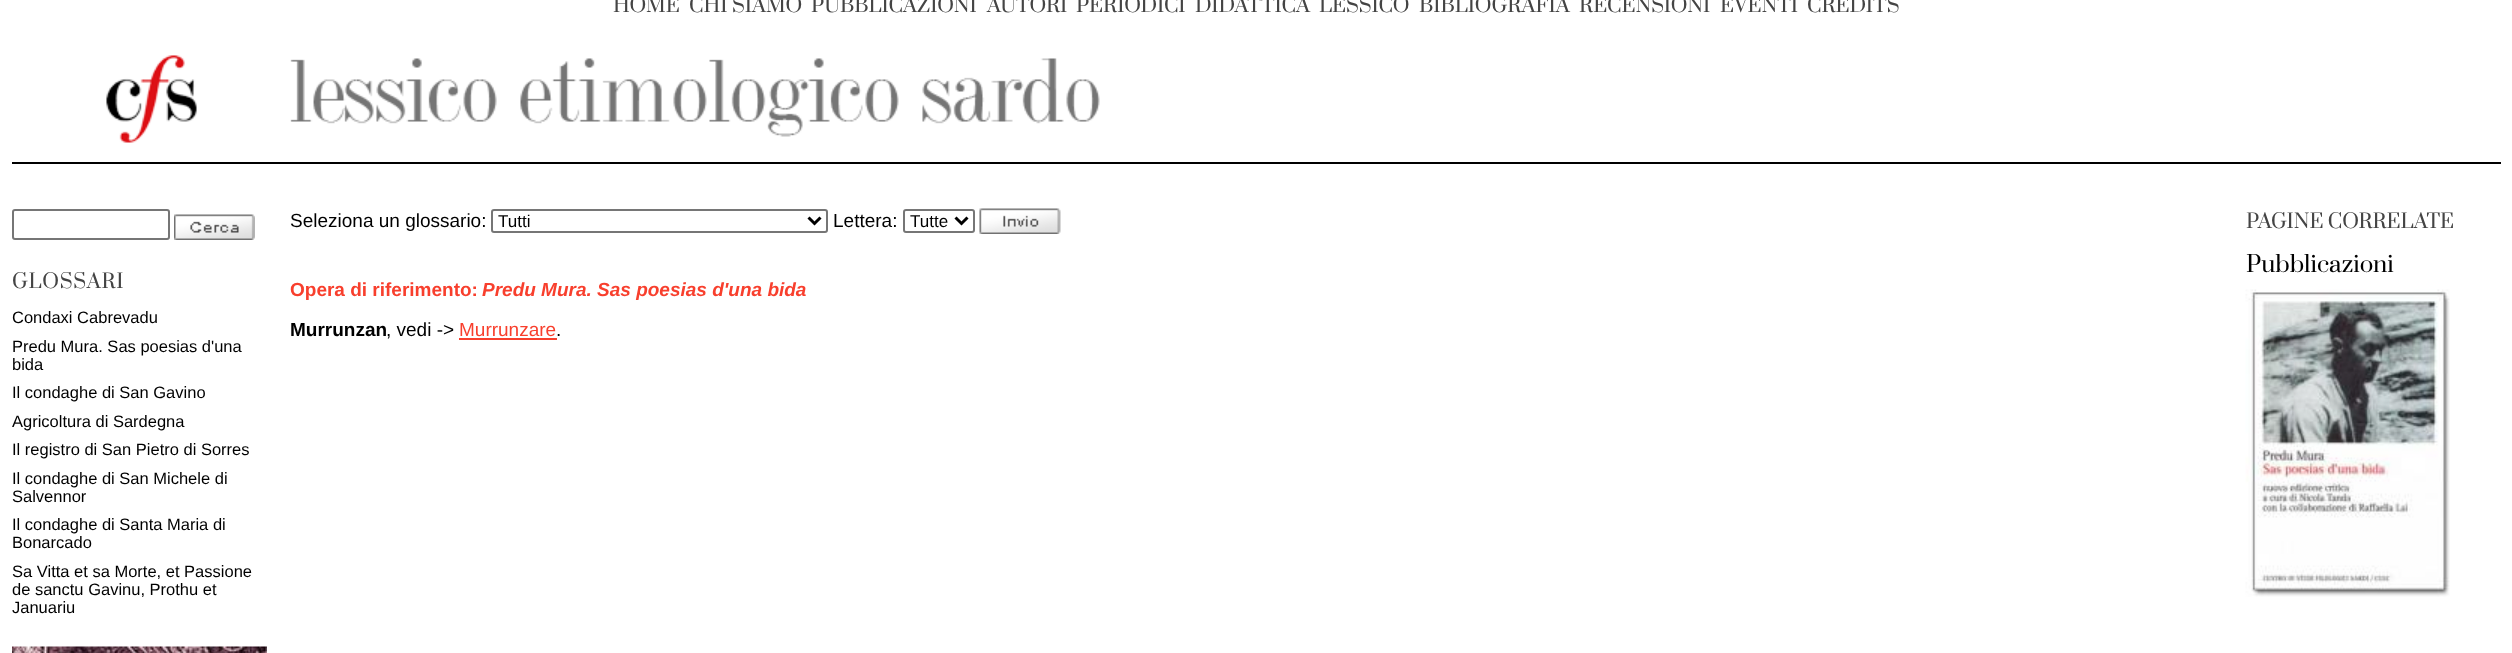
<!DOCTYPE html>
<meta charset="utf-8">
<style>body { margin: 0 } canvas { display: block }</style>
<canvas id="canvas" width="2512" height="653"></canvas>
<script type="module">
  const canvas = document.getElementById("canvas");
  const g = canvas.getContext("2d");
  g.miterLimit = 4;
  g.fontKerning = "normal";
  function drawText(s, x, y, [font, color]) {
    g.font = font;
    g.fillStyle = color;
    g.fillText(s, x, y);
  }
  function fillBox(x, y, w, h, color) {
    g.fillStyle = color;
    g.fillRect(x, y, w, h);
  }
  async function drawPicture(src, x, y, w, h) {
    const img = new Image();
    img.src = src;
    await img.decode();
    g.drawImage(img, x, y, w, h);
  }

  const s1 = ["19.5px Prata", "#444444"];
  const s2 = ["16.5px Liberation Sans", "#000000"];
  const s3 = ["19px Liberation Sans", "#000000"];
  const s4 = ["17px Liberation Sans", "#000000"];
  const s5 = ["bold 19px Liberation Sans", "#F83F2D"];
  const s6 = ["italic bold 19px Liberation Sans", "#F83F2D"];
  const s7 = ["bold 19px Liberation Sans", "#000000"];
  const s8 = ["19px Liberation Sans", "#F83F2D"];
  const s9 = ["22.5px Prata", "#000000"];

  fillBox(0, 0, 2512, 653, "#FFFFFF");
  drawText("HOME", 613, 12, s1);
  drawText("CHI SIAMO", 689, 12, s1);
  drawText("PUBBLICAZIONI", 811, 12, s1);
  drawText("AUTORI", 987, 12, s1);
  drawText("PERIODICI", 1076, 12, s1);
  drawText("DIDATTICA", 1195, 12, s1);
  drawText("LESSICO", 1319, 12, s1);
  drawText("BIBLIOGRAFIA", 1419, 12, s1);
  drawText("RECENSIONI", 1579, 12, s1);
  drawText("EVENTI", 1720, 12, s1);
  drawText("CREDITS", 1807, 12, s1);
  fillBox(12, 162, 2489, 2, "#000000");
  await drawPicture("pic1.png", 106, 55, 91, 88);
  await drawPicture("pic2.png", 290, 58, 810, 79);
  g.beginPath();
  g.roundRect(13, 210, 156, 29, 2);
  g.strokeStyle = "#767676";
  g.lineWidth = 2;
  g.stroke();
  await drawPicture("pic3.png", 174, 214, 81, 26);
  g.letterSpacing = "0.75px";
  drawText("GLOSSARI", 12, 288, s1);
  g.letterSpacing = "0px";
  drawText("Condaxi Cabrevadu", 12, 323, s2);
  drawText("Predu Mura. Sas poesias d'una", 12, 352, s2);
  drawText("bida", 12, 370, s2);
  drawText("Il condaghe di San Gavino", 12, 398, s2);
  drawText("Agricoltura di Sardegna", 12, 427, s2);
  drawText("Il registro di San Pietro di Sorres", 12, 455, s2);
  drawText("Il condaghe di San Michele di", 12, 484, s2);
  drawText("Salvennor", 12, 502, s2);
  drawText("Il condaghe di Santa Maria di", 12, 530, s2);
  drawText("Bonarcado", 12, 548, s2);
  drawText("Sa Vitta et sa Morte, et Passione", 12, 577, s2);
  drawText("de sanctu Gavinu, Prothu et", 12, 595, s2);
  drawText("Januariu", 12, 613, s2);
  await drawPicture("pic4.png", 12, 646, 255, 7);
  drawText("Seleziona un glossario:", 290, 227, s3);
  g.beginPath();
  g.roundRect(492, 210, 335, 22, 2);
  g.stroke();
  g.beginPath();
  g.moveTo(808.5, 217.5);
  g.lineTo(814.5, 223.5);
  g.lineTo(820.5, 217.5);
  g.strokeStyle = "#000000";
  g.lineWidth = 3;
  g.stroke();
  drawText("Tutti", 498, 227, s4);
  drawText("Lettera:", 833, 227, s3);
  g.beginPath();
  g.roundRect(904, 210, 70, 22, 2);
  g.strokeStyle = "#767676";
  g.lineWidth = 2;
  g.stroke();
  g.beginPath();
  g.moveTo(955.5, 217.5);
  g.lineTo(961.5, 223.5);
  g.lineTo(967.5, 217.5);
  g.strokeStyle = "#000000";
  g.lineWidth = 3;
  g.stroke();
  drawText("Tutte", 910, 227, s4);
  await drawPicture("pic5.png", 979, 208, 82, 26);
  drawText("Opera di riferimento:", 290, 296, s5);
  drawText("Predu Mura. Sas poesias d'una bida", 482, 296, s6);
  drawText("Murrunzan", 290, 336, s7);
  drawText(", vedi ->", 386, 336, s3);
  drawText("Murrunzare", 459, 336, s8);
  fillBox(459, 338, 98, 2, "#F83F2D");
  drawText(".", 556, 336, s3);
  g.letterSpacing = "-0.1px";
  drawText("PAGINE CORRELATE", 2246, 228, s1);
  g.letterSpacing = "0px";
  drawText("Pubblicazioni", 2246, 272, s9);
  await drawPicture("pic6.png", 2245, 289, 205, 308);
</script>
